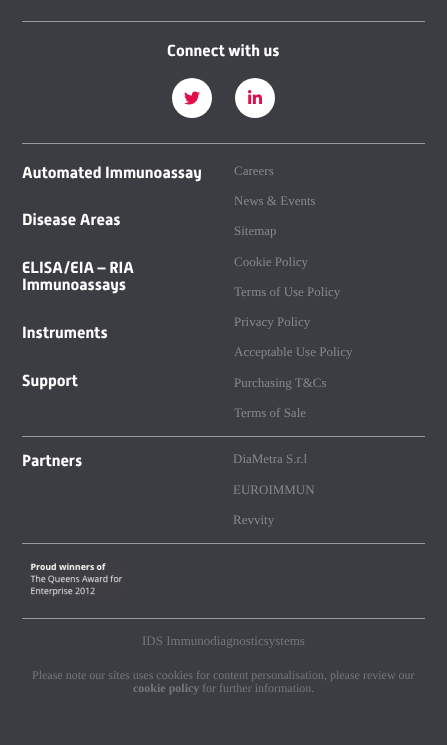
<!DOCTYPE html>
<meta charset="utf-8">
<style>body { margin: 0 } canvas { display: block }</style>
<canvas id="canvas" width="447" height="745"></canvas>
<script type="module">
  const canvas = document.getElementById("canvas");
  const g = canvas.getContext("2d");
  g.miterLimit = 4;
  g.fontKerning = "normal";
  function drawText(s, x, y, [font, color]) {
    g.font = font;
    g.fillStyle = color;
    g.fillText(s, x, y);
  }
  function fillBox(x, y, w, h, color) {
    g.fillStyle = color;
    g.fillRect(x, y, w, h);
  }
  async function drawPicture(src, x, y, w, h) {
    const img = new Image();
    img.src = src;
    await img.decode();
    g.drawImage(img, x, y, w, h);
  }

  const s1 = ["bold 16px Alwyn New", "#FFFFFF"];
  const s2 = ["13px Liberation Serif", "#86888F"];
  const s3 = ["13px Liberation Serif", "#747678"];
  const s4 = ["12px Liberation Serif", "#747678"];
  const s5 = ["bold 12px Liberation Serif", "#747678"];

  fillBox(0, 0, 447, 745, "#3C3D42");
  fillBox(22, 21, 403, 1, "#9A9B9C");
  fillBox(22, 143, 403, 1, "#9A9B9C");
  drawText("Connect with us", 167, 56, s1);
  g.beginPath();
  g.arc(192, 98, 20, 0, Math.PI * 2);
  g.fill();
  await drawPicture("pic1.png", 184, 91, 16, 14);
  g.beginPath();
  g.arc(255, 98, 20, 0, Math.PI * 2);
  g.fill();
  await drawPicture("pic2.png", 248, 90, 14, 14);
  drawText("Automated Immunoassay", 22, 178, s1);
  drawText("Disease Areas", 22, 225, s1);
  drawText("ELISA/EIA – RIA", 22, 273, s1);
  drawText("Immunoassays", 22, 290, s1);
  drawText("Instruments", 22, 338, s1);
  drawText("Support", 22, 386, s1);
  drawText("Careers", 234, 175, s2);
  drawText("News & Events", 234, 205, s2);
  drawText("Sitemap", 234, 235, s2);
  drawText("Cookie Policy", 234, 266, s2);
  drawText("Terms of Use Policy", 234, 296, s2);
  drawText("Privacy Policy", 234, 326, s2);
  drawText("Acceptable Use Policy", 234, 356, s2);
  drawText("Purchasing T&Cs", 234, 387, s2);
  drawText("Terms of Sale", 234, 417, s2);
  fillBox(22, 436, 403, 1, "#9A9B9C");
  drawText("Partners", 22, 466, s1);
  drawText("DiaMetra S.r.l", 233, 463, s2);
  drawText("EUROIMMUN", 233, 494, s2);
  drawText("Revvity", 233, 524, s2);
  fillBox(22, 543, 403, 1, "#9A9B9C");
  fillBox(22, 618, 403, 1, "#9A9B9C");
  await drawPicture("pic3.png", 30, 563, 93, 34);
  drawText("IDS Immunodiagnosticsystems", 142, 645, s3);
  drawText("Please note our sites uses cookies for content personalisation, please review our", 32, 679, s4);
  drawText("cookie policy", 133, 692, s5);
  drawText("for further information.", 202, 692, s4);
</script>
